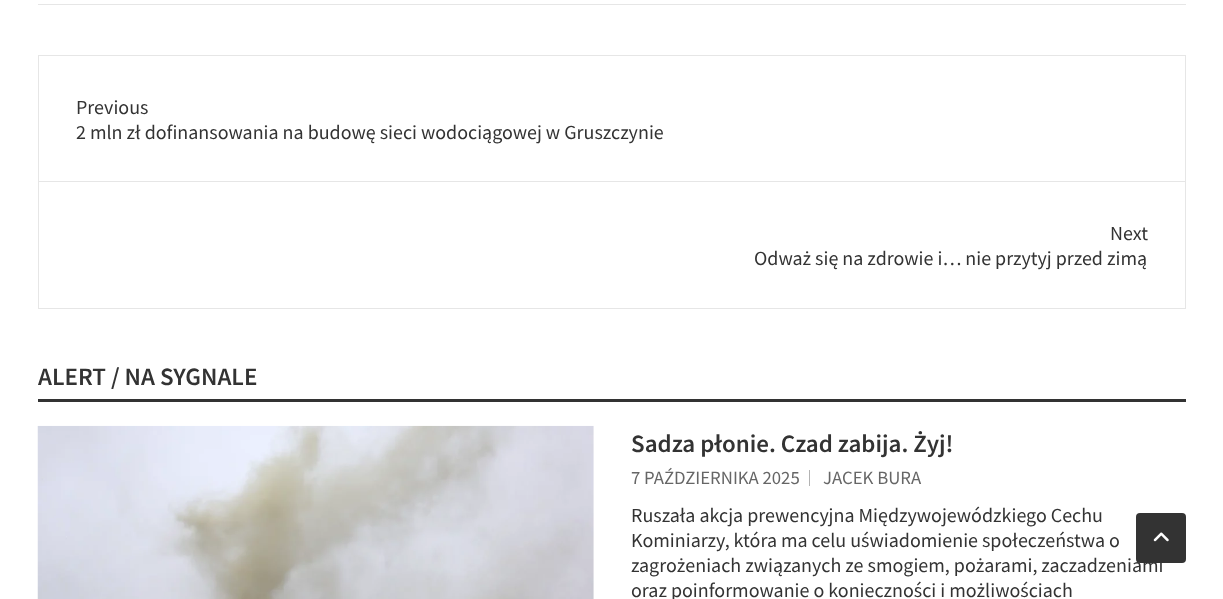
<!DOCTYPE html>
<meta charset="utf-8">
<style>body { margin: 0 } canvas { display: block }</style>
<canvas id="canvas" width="1223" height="599"></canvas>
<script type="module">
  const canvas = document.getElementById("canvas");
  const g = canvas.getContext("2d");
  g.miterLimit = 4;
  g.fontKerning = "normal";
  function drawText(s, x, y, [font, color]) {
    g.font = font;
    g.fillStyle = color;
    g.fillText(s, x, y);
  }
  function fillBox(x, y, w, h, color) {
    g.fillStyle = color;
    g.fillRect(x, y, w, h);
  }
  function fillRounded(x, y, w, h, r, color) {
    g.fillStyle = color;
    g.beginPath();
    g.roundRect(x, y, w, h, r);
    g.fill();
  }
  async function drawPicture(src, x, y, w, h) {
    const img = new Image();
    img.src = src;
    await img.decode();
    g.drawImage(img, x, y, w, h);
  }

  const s1 = ["20px Source Sans Pro", "#333333"];
  const s2 = ["600 25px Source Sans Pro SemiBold", "#333333"];
  const s3 = ["18.75px Source Sans Pro", "#666666"];

  fillBox(0, 0, 1223, 599, "#FFFFFF");
  fillBox(38, 4, 1148, 1, "#E6E6E6");
  g.strokeStyle = "#E6E6E6";
  g.strokeRect(38.5, 55.5, 1147, 253);
  fillBox(39, 181, 1146, 1, "#E6E6E6");
  drawText("Previous", 76, 114, s1);
  drawText("2 mln zł dofinansowania na budowę sieci wodociągowej w Gruszczynie", 76, 139, s1);
  drawText("Next", 1110, 240, s1);
  drawText("Odważ się na zdrowie i… nie przytyj przed zimą", 754, 265, s1);
  fillBox(38, 399, 1148, 3, "#333333");
  drawText("ALERT / NA SYGNALE", 38, 385, s2);
  await drawPicture("pic1.png", 37, 425, 557, 174);
  drawText("Sadza płonie. Czad zabija. Żyj!", 631, 452, s2);
  drawText("7 PAŹDZIERNIKA 2025", 631, 484, s3);
  fillBox(809, 470, 1, 16, "#B3B3B3");
  drawText("JACEK BURA", 823, 484, s3);
  drawText("Ruszała akcja prewencyjna Międzywojewódzkiego Cechu", 631, 522, s1);
  drawText("Kominiarzy, która ma celu uświadomienie społeczeństwa o", 631, 547, s1);
  drawText("zagrożeniach związanych ze smogiem, pożarami, zaczadzeniami", 631, 572, s1);
  drawText("oraz poinformowanie o konieczności i możliwościach", 631, 597, s1);
  fillRounded(1136, 513, 50, 50, 4, "#333333");
  await drawPicture("pic2.png", 1153, 532, 16, 10);
</script>
